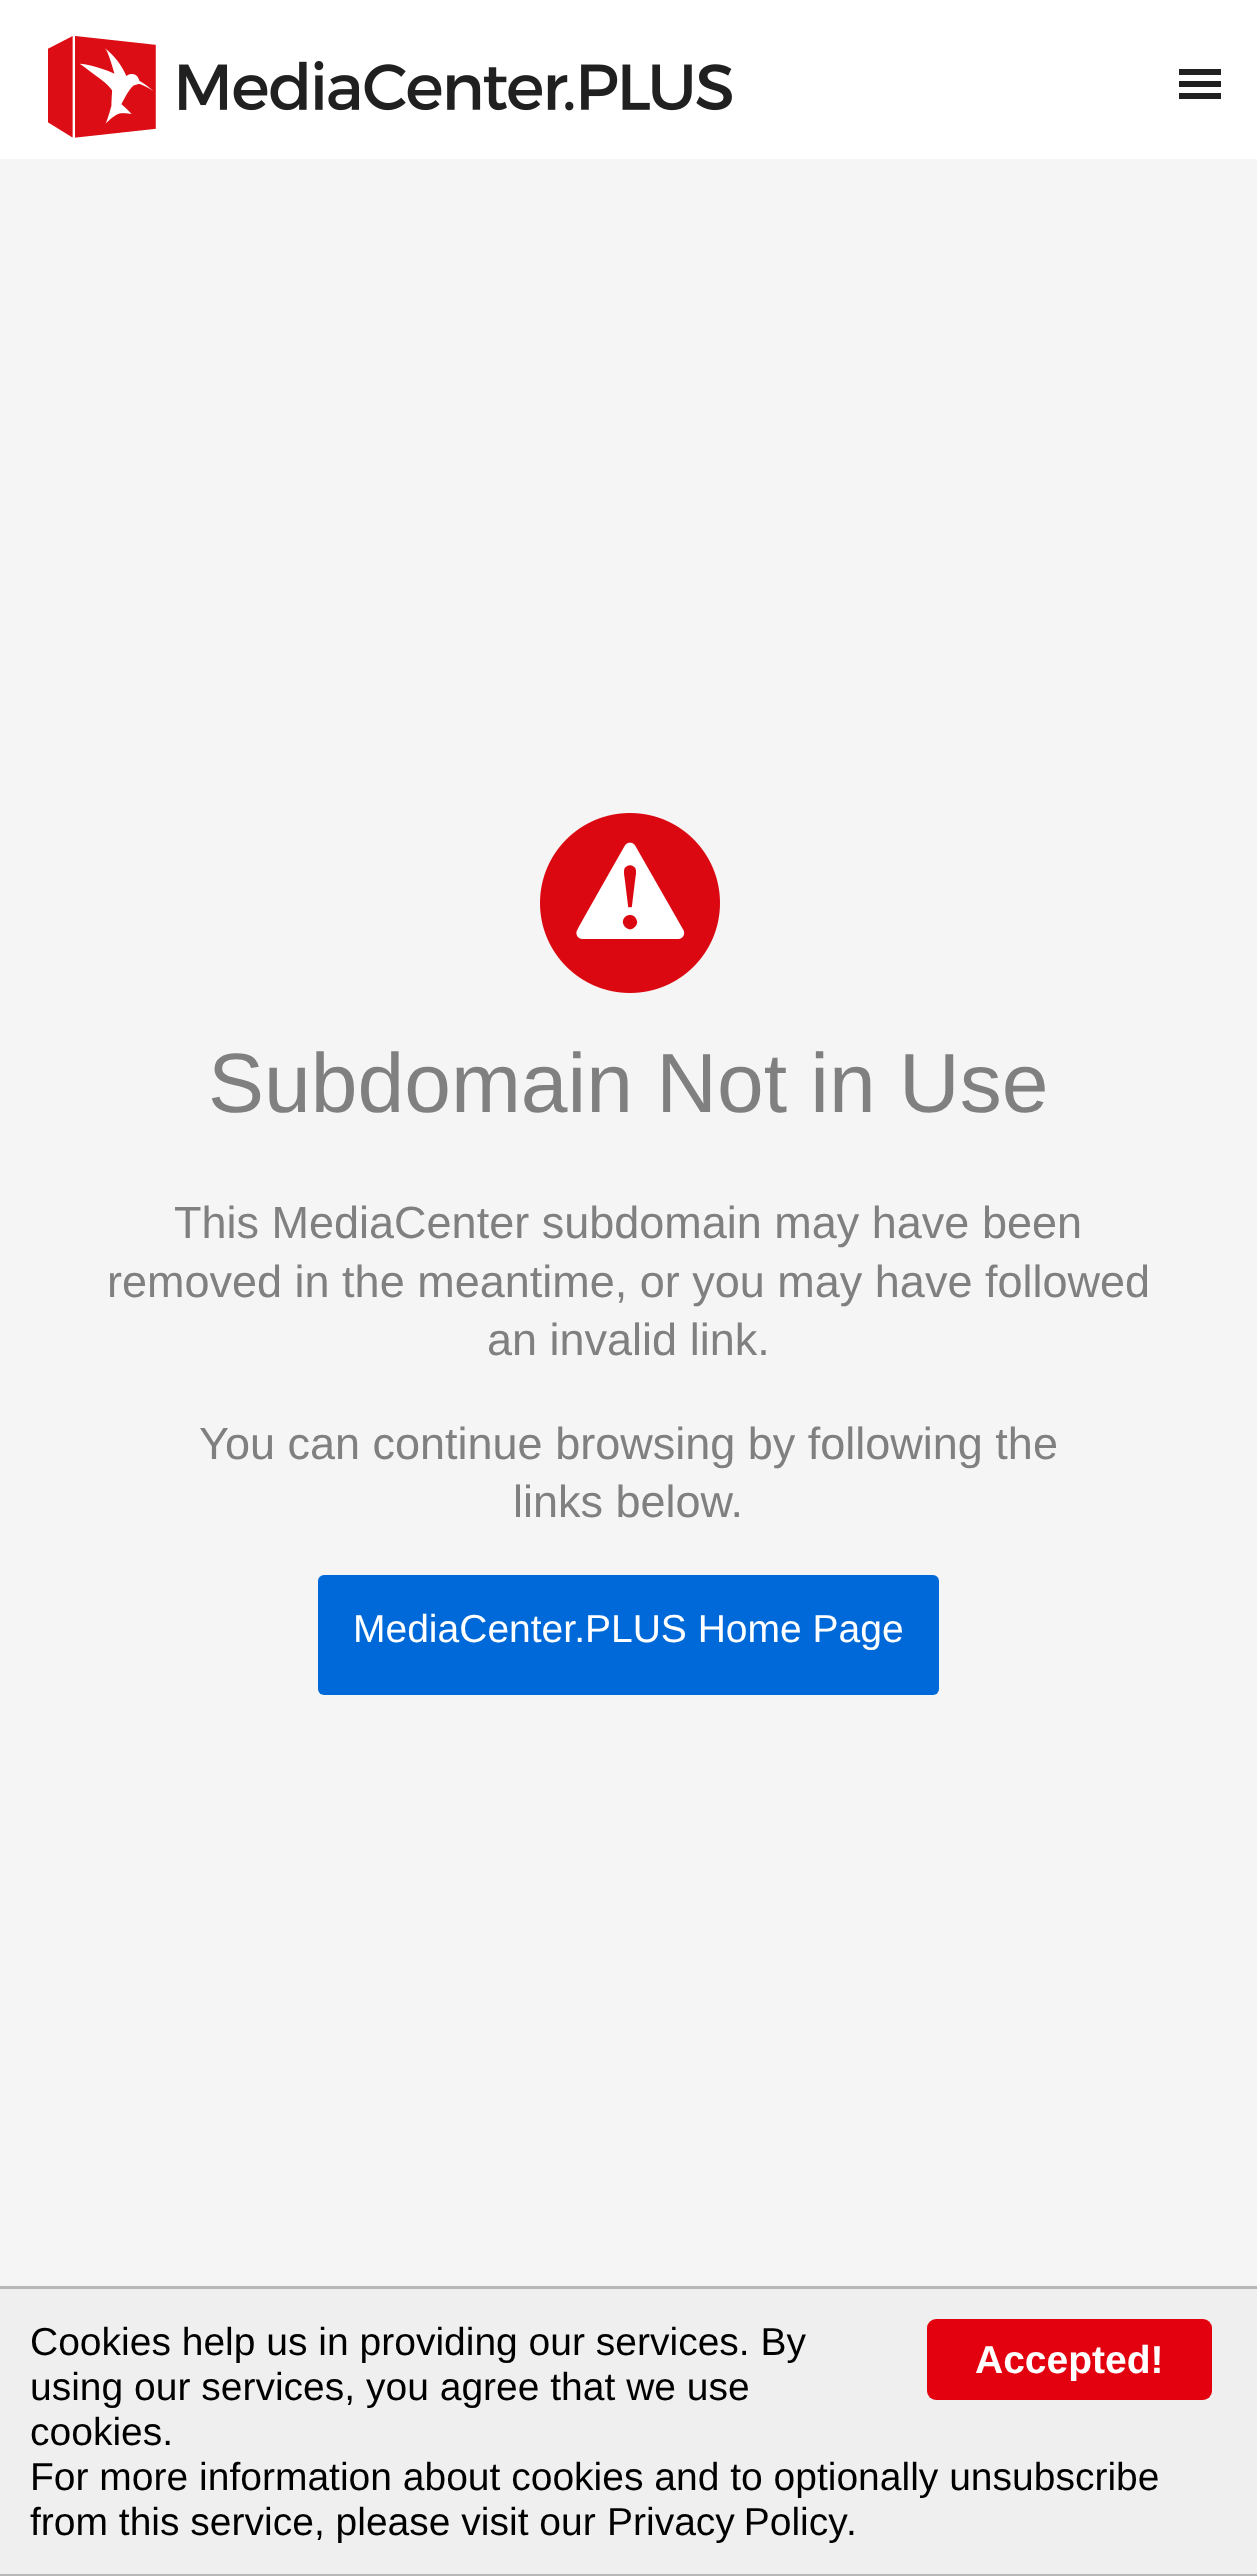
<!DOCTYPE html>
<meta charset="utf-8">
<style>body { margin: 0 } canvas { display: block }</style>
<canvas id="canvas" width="1257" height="2576"></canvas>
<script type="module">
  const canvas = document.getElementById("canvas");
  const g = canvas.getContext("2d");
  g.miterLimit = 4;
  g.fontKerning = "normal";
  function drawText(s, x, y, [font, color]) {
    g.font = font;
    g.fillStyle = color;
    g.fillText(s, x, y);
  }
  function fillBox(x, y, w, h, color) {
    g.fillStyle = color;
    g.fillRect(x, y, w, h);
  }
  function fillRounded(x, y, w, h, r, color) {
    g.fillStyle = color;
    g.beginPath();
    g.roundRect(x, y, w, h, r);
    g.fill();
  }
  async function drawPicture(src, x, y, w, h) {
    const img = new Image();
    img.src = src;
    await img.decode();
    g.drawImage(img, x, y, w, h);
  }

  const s1 = ["84px Liberation Sans", "#808080"];
  const s2 = ["45px Liberation Sans", "#808080"];
  const s3 = ["39px Liberation Sans", "#FFFFFF"];
  const s4 = ["39px Liberation Sans", "#000000"];
  const s5 = ["bold 39px Liberation Sans", "#FFFFFF"];

  fillBox(0, 0, 1257, 2576, "#F5F5F5");
  fillBox(0, 0, 1257, 159, "#FFFFFF");
  await drawPicture("pic1.png", 48, 36, 684, 102);
  fillBox(1179, 81, 42, 6, "#202020");
  fillBox(1179, 69, 42, 6, "#202020");
  fillBox(1179, 93, 42, 6, "#202020");
  await drawPicture("pic2.png", 540, 813, 180, 180);
  drawText("Subdomain Not in Use", 208, 1112, s1);
  drawText("This MediaCenter subdomain may have been", 174, 1238, s2);
  drawText("removed in the meantime, or you may have followed", 107, 1297, s2);
  drawText("an invalid link.", 487, 1355, s2);
  drawText("You can continue browsing by following the", 199, 1459, s2);
  drawText("links below.", 513, 1517, s2);
  fillRounded(318, 1575, 621, 120, 6, "#0069D9");
  drawText("MediaCenter.PLUS Home Page", 353, 1642, s3);
  fillBox(0, 2289, 1257, 285, "#EFEFEF");
  fillBox(0, 2286, 1257, 3, "#B7B7B7");
  fillBox(0, 2574, 1257, 2, "#B7B7B7");
  drawText("Cookies help us in providing our services. By", 30, 2355, s4);
  drawText("using our services, you agree that we use", 30, 2400, s4);
  drawText("cookies.", 30, 2445, s4);
  drawText("For more information about cookies and to optionally unsubscribe", 30, 2490, s4);
  drawText("from this service, please visit our", 30, 2535, s4);
  g.wordSpacing = "-2px";
  drawText("Privacy Policy", 607, 2535, s4);
  g.wordSpacing = "0px";
  drawText(".", 846, 2535, s4);
  fillRounded(927, 2319, 285, 81, 9, "#E3000F");
  drawText("Accepted!", 975, 2373, s5);
</script>
